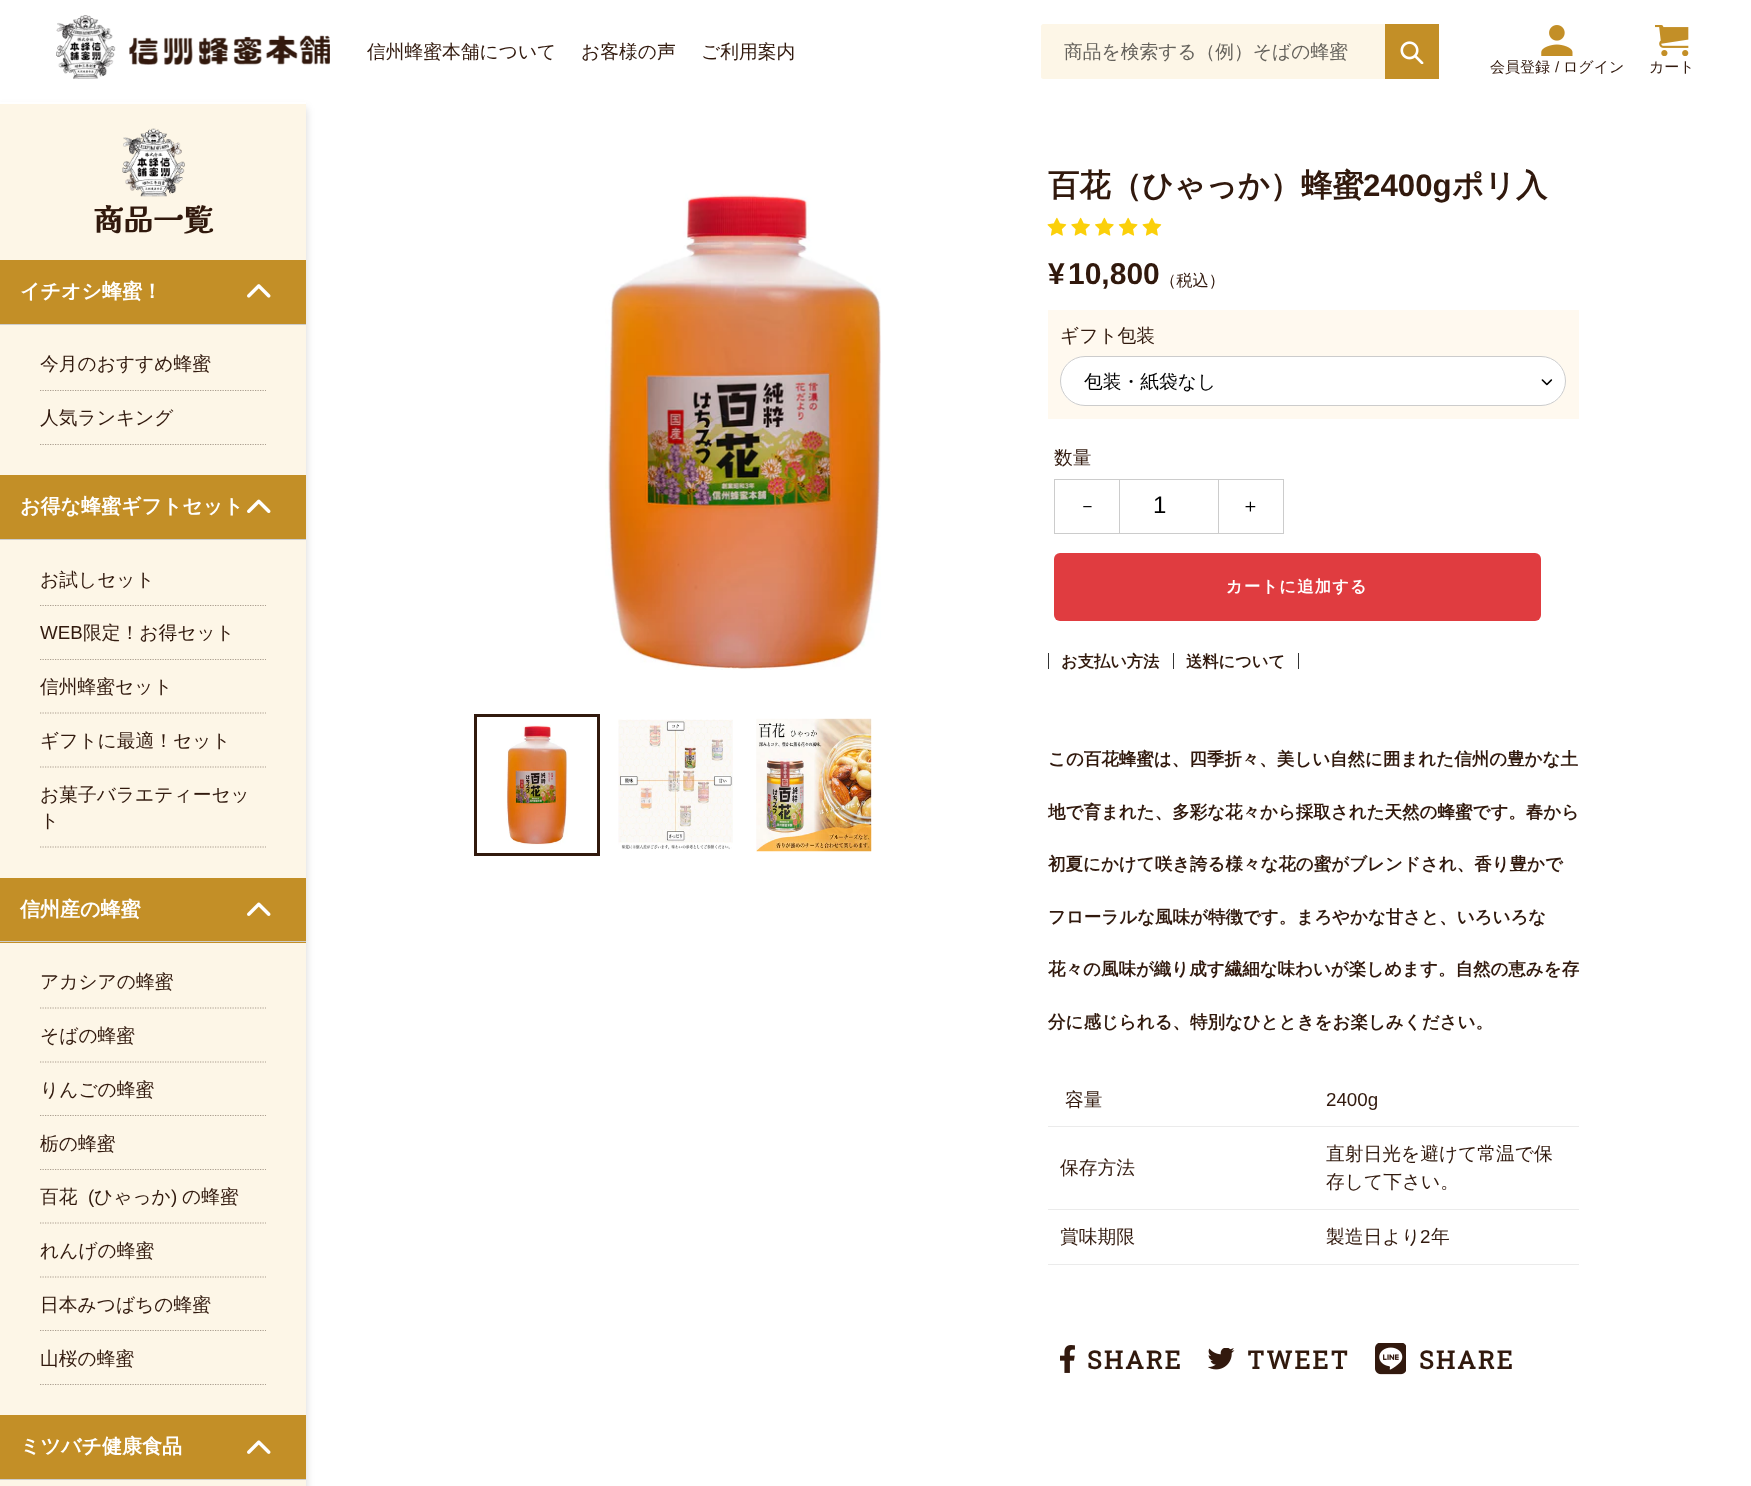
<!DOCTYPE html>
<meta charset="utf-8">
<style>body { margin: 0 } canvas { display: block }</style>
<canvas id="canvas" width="1751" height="1486"></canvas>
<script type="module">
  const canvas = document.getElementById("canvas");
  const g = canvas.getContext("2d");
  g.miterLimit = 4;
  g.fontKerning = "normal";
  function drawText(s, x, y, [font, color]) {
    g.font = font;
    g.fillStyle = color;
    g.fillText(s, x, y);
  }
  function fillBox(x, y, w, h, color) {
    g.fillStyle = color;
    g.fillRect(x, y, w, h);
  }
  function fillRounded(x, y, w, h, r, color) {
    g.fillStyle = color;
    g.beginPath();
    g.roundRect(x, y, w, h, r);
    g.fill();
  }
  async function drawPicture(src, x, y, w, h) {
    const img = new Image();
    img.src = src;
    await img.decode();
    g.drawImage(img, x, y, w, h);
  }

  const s1 = ["500 18.75px WenQuanYi Zen Hei", "#31190D"];
  const s2 = ["500 18.75px WenQuanYi Zen Hei", "#65625C"];
  const s3 = ["500 15px WenQuanYi Zen Hei", "#31190D"];
  const s4 = ["15px Liberation Sans", "#31190D"];
  const s5 = ["bold 30px Kaisei HarunoUmi", "#31190D"];
  const s6 = ["bold 20px WenQuanYi Zen Hei", "#FFFFFF"];
  const s7 = ["18.75px Liberation Sans", "#31190D"];
  const s8 = ["bold 31.25px WenQuanYi Zen Hei", "#31190D"];
  const s9 = ["bold 31.25px Liberation Sans", "#31190D"];
  const s10 = ["bold 30px Liberation Sans", "#31190D"];
  const s11 = ["500 16.25px WenQuanYi Zen Hei", "#31190D"];
  const s12 = ["500 18.75px WenQuanYi Zen Hei", "#000000"];
  const s13 = ["24px Liberation Sans", "#000000"];
  const s14 = ["bold 16.25px WenQuanYi Zen Hei", "#FFFFFF"];
  const s15 = ["bold 16.25px WenQuanYi Zen Hei", "#31190D"];
  const s16 = ["bold 17.5px WenQuanYi Zen Hei", "#31190D"];
  const s17 = ["bold 25px Roboto Slab", "#31190D"];

  fillBox(0, 0, 1751, 1486, "#FFFFFF");
  g.fillStyle = "rgba(0, 0, 0, 0.16)";
  g.filter = "blur(4px)";
  g.beginPath();
  g.rect(0, 108, 306, 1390);
  g.fill();
  g.filter = "none";
  fillBox(0, 102, 306, 2, "#FFFFFF");
  await drawPicture("pic1.png", 56, 15, 274, 64);
  drawText("信州蜂蜜本舗について", 367, 58, s1);
  drawText("お客様の声", 581, 58, s1);
  drawText("ご利用案内", 701, 58, s1);
  fillRounded(1041, 24, 398, 55, 2.5, "#FDF6E7");
  drawText("商品を検索する（例）そばの蜂蜜", 1064, 58, s2);
  fillBox(1385, 24, 54, 55, "#C38F27");
  await drawPicture("pic2.png", 1400, 41, 24, 23);
  await drawPicture("pic3.png", 1541, 25, 32, 31);
  drawText("会員登録", 1490, 72, s3);
  drawText("/", 1555, 72, s4);
  drawText("ログイン", 1563, 72, s3);
  await drawPicture("pic4.png", 1655, 25, 34, 31);
  drawText("カート", 1649, 72, s3);
  fillBox(0, 104, 306, 1382, "#FDF6E7");
  await drawPicture("pic5.png", 122, 128, 63, 69);
  drawText("商品一覧", 93, 231, s5);
  fillBox(0, 260, 306, 64, "#C38F27");
  fillBox(0, 324, 306, 1, "#CDCDCD");
  drawText("イチオシ蜂蜜！", 20, 298, s6);
  await drawPicture("pic6.png", 247, 284, 24, 14);
  g.beginPath();
  g.moveTo(40, 390.5);
  g.lineTo(266, 390.5);
  g.strokeStyle = "#AB9E90";
  g.lineWidth = 1.2;
  g.setLineDash([1.25, 1.25]);
  g.stroke();
  drawText("今月のおすすめ蜂蜜", 40, 370, s1);
  g.beginPath();
  g.moveTo(40, 444.5);
  g.lineTo(266, 444.5);
  g.stroke();
  drawText("人気ランキング", 40, 424, s1);
  fillBox(0, 475, 306, 64, "#C38F27");
  fillBox(0, 539, 306, 1, "#CDCDCD");
  drawText("お得な蜂蜜ギフトセット", 20, 513, s6);
  await drawPicture("pic7.png", 247, 499, 24, 14);
  g.beginPath();
  g.moveTo(40, 605.5);
  g.lineTo(266, 605.5);
  g.stroke();
  drawText("お試しセット", 40, 586, s1);
  g.beginPath();
  g.moveTo(40, 659.5);
  g.lineTo(266, 659.5);
  g.stroke();
  drawText("WEB", 40, 639, s7);
  drawText("限定！お得セット", 83, 639, s1);
  g.beginPath();
  g.moveTo(40, 713);
  g.lineTo(266, 713);
  g.stroke();
  drawText("信州蜂蜜セット", 40, 693, s1);
  g.beginPath();
  g.moveTo(40, 767);
  g.lineTo(266, 767);
  g.stroke();
  drawText("ギフトに最適！セット", 40, 747, s1);
  g.beginPath();
  g.moveTo(40, 847);
  g.lineTo(266, 847);
  g.stroke();
  drawText("お菓子バラエティーセッ", 40, 801, s1);
  drawText("ト", 40, 827, s1);
  fillBox(0, 878, 306, 65, "#C38F27");
  fillBox(0, 941, 306, 1, "#CDCDCD");
  drawText("信州産の蜂蜜", 20, 916, s6);
  await drawPicture("pic8.png", 247, 902, 24, 14);
  g.beginPath();
  g.moveTo(40, 1008);
  g.lineTo(266, 1008);
  g.stroke();
  drawText("アカシアの蜂蜜", 40, 988, s1);
  g.beginPath();
  g.moveTo(40, 1062);
  g.lineTo(266, 1062);
  g.stroke();
  drawText("そばの蜂蜜", 40, 1042, s1);
  g.beginPath();
  g.moveTo(40, 1115.5);
  g.lineTo(266, 1115.5);
  g.stroke();
  drawText("りんごの蜂蜜", 40, 1096, s1);
  g.beginPath();
  g.moveTo(40, 1169.5);
  g.lineTo(266, 1169.5);
  g.stroke();
  drawText("栃の蜂蜜", 40, 1150, s1);
  g.beginPath();
  g.moveTo(40, 1223);
  g.lineTo(266, 1223);
  g.stroke();
  drawText("百花", 40, 1203, s1);
  drawText("(", 88, 1203, s7);
  drawText("ひゃっか", 94, 1203, s1);
  drawText(")", 171, 1203, s7);
  drawText("の蜂蜜", 182, 1203, s1);
  g.beginPath();
  g.moveTo(40, 1277);
  g.lineTo(266, 1277);
  g.stroke();
  drawText("れんげの蜂蜜", 40, 1257, s1);
  g.beginPath();
  g.moveTo(40, 1330.5);
  g.lineTo(266, 1330.5);
  g.stroke();
  drawText("日本みつばちの蜂蜜", 40, 1311, s1);
  g.beginPath();
  g.moveTo(40, 1384.5);
  g.lineTo(266, 1384.5);
  g.stroke();
  drawText("山桜の蜂蜜", 40, 1365, s1);
  fillBox(0, 1415, 306, 64, "#C38F27");
  fillBox(0, 1479, 306, 1, "#CDCDCD");
  drawText("ミツバチ健康食品", 20, 1453, s6);
  await drawPicture("pic9.png", 247, 1440, 24, 14);
  await drawPicture("pic10.png", 605, 190, 276, 480);
  g.strokeStyle = "#31190D";
  g.lineWidth = 3;
  g.setLineDash([]);
  g.strokeRect(475.5, 715.5, 123, 139);
  await drawPicture("pic11.png", 506, 725, 62, 120);
  await drawPicture("pic12.png", 618, 719, 115, 131);
  await drawPicture("pic13.png", 756, 718, 116, 134);
  drawText("百花（ひゃっか）蜂蜜", 1048, 196, s8);
  drawText("2400g", 1363, 196, s9);
  drawText("ポリ入", 1452, 196, s8);
  await drawPicture("pic14.png", 1047, 217, 20, 19);
  await drawPicture("pic15.png", 1071, 217, 19, 19);
  await drawPicture("pic16.png", 1095, 217, 19, 19);
  await drawPicture("pic17.png", 1118, 217, 20, 19);
  await drawPicture("pic14.png", 1142, 217, 20, 19);
  drawText("¥", 1048, 284, s10);
  drawText("10,800", 1068, 284, s10);
  drawText("（税込）", 1160, 286, s11);
  fillBox(1048, 310, 531, 109, "#FFF9EF");
  drawText("ギフト包装", 1060, 342, s1);
  fillRounded(1060, 356, 506, 50, 25, "#FFFFFF");
  await drawPicture("pic18.png", 1541, 379, 12, 7);
  g.beginPath();
  g.roundRect(1060.5, 356.5, 505, 49, 24.5);
  g.strokeStyle = "#CCCCCC";
  g.lineWidth = 1;
  g.stroke();
  drawText("包装・紙袋なし", 1084, 388, s12);
  drawText("数量", 1054, 464, s1);
  fillBox(1054, 479, 65, 1, "#CCCCCC");
  fillBox(1054, 533, 65, 1, "#CCCCCC");
  fillBox(1054, 479, 1, 55, "#CCCCCC");
  drawText("－", 1078, 512, s12);
  g.strokeRect(1119.5, 479.5, 99, 54);
  drawText("1", 1153, 513, s13);
  fillBox(1219, 479, 65, 1, "#CCCCCC");
  fillBox(1283, 479, 1, 55, "#CCCCCC");
  fillBox(1219, 533, 65, 1, "#CCCCCC");
  drawText("＋", 1241, 512, s12);
  fillRounded(1054, 553, 487, 68, 6, "#E03C40");
  g.letterSpacing = "1.25px";
  drawText("カートに追加する", 1226, 592, s14);
  fillBox(1173, 653, 1, 16, "#333333");
  fillBox(1048, 653, 1, 16, "#333333");
  g.letterSpacing = "0px";
  drawText("お支払い方法", 1061, 667, s15);
  fillBox(1298, 653, 1, 16, "#333333");
  drawText("送料について", 1186, 667, s15);
  drawText("この百花蜂蜜は、四季折々、美しい自然に囲まれた信州の豊かな土", 1048, 765, s16);
  drawText("地で育まれた、多彩な花々から採取された天然の蜂蜜です。春から", 1048, 818, s16);
  drawText("初夏にかけて咲き誇る様々な花の蜜がブレンドされ、香り豊かで", 1048, 870, s16);
  drawText("フローラルな風味が特徴です。まろやかな甘さと、いろいろな", 1048, 923, s16);
  drawText("花々の風味が織り成す繊細な味わいが楽しめます。自然の恵みを存", 1048, 975, s16);
  drawText("分に感じられる、特別なひとときをお楽しみください。", 1048, 1028, s16);
  drawText("容量", 1065, 1106, s1);
  fillBox(1048, 1126, 531, 1, "#EBEBEB");
  drawText("2400g", 1326, 1106, s7);
  drawText("保存方法", 1060, 1174, s1);
  fillBox(1048, 1209, 531, 1, "#EBEBEB");
  drawText("直射日光を避けて常温で保", 1326, 1160, s1);
  drawText("存して下さい。", 1326, 1188, s1);
  drawText("賞味期限", 1060, 1243, s1);
  fillBox(1048, 1264, 531, 1, "#EBEBEB");
  drawText("製造日より", 1326, 1243, s1);
  drawText("2", 1420, 1243, s7);
  drawText("年", 1431, 1243, s1);
  await drawPicture("pic19.png", 1060, 1345, 15, 28);
  g.letterSpacing = "2px";
  drawText("SHARE", 1087, 1369, s17);
  await drawPicture("pic20.png", 1208, 1348, 27, 22);
  drawText("TWEET", 1247, 1369, s17);
  await drawPicture("pic21.png", 1375, 1343, 31, 32);
  drawText("SHARE", 1419, 1369, s17);
</script>
